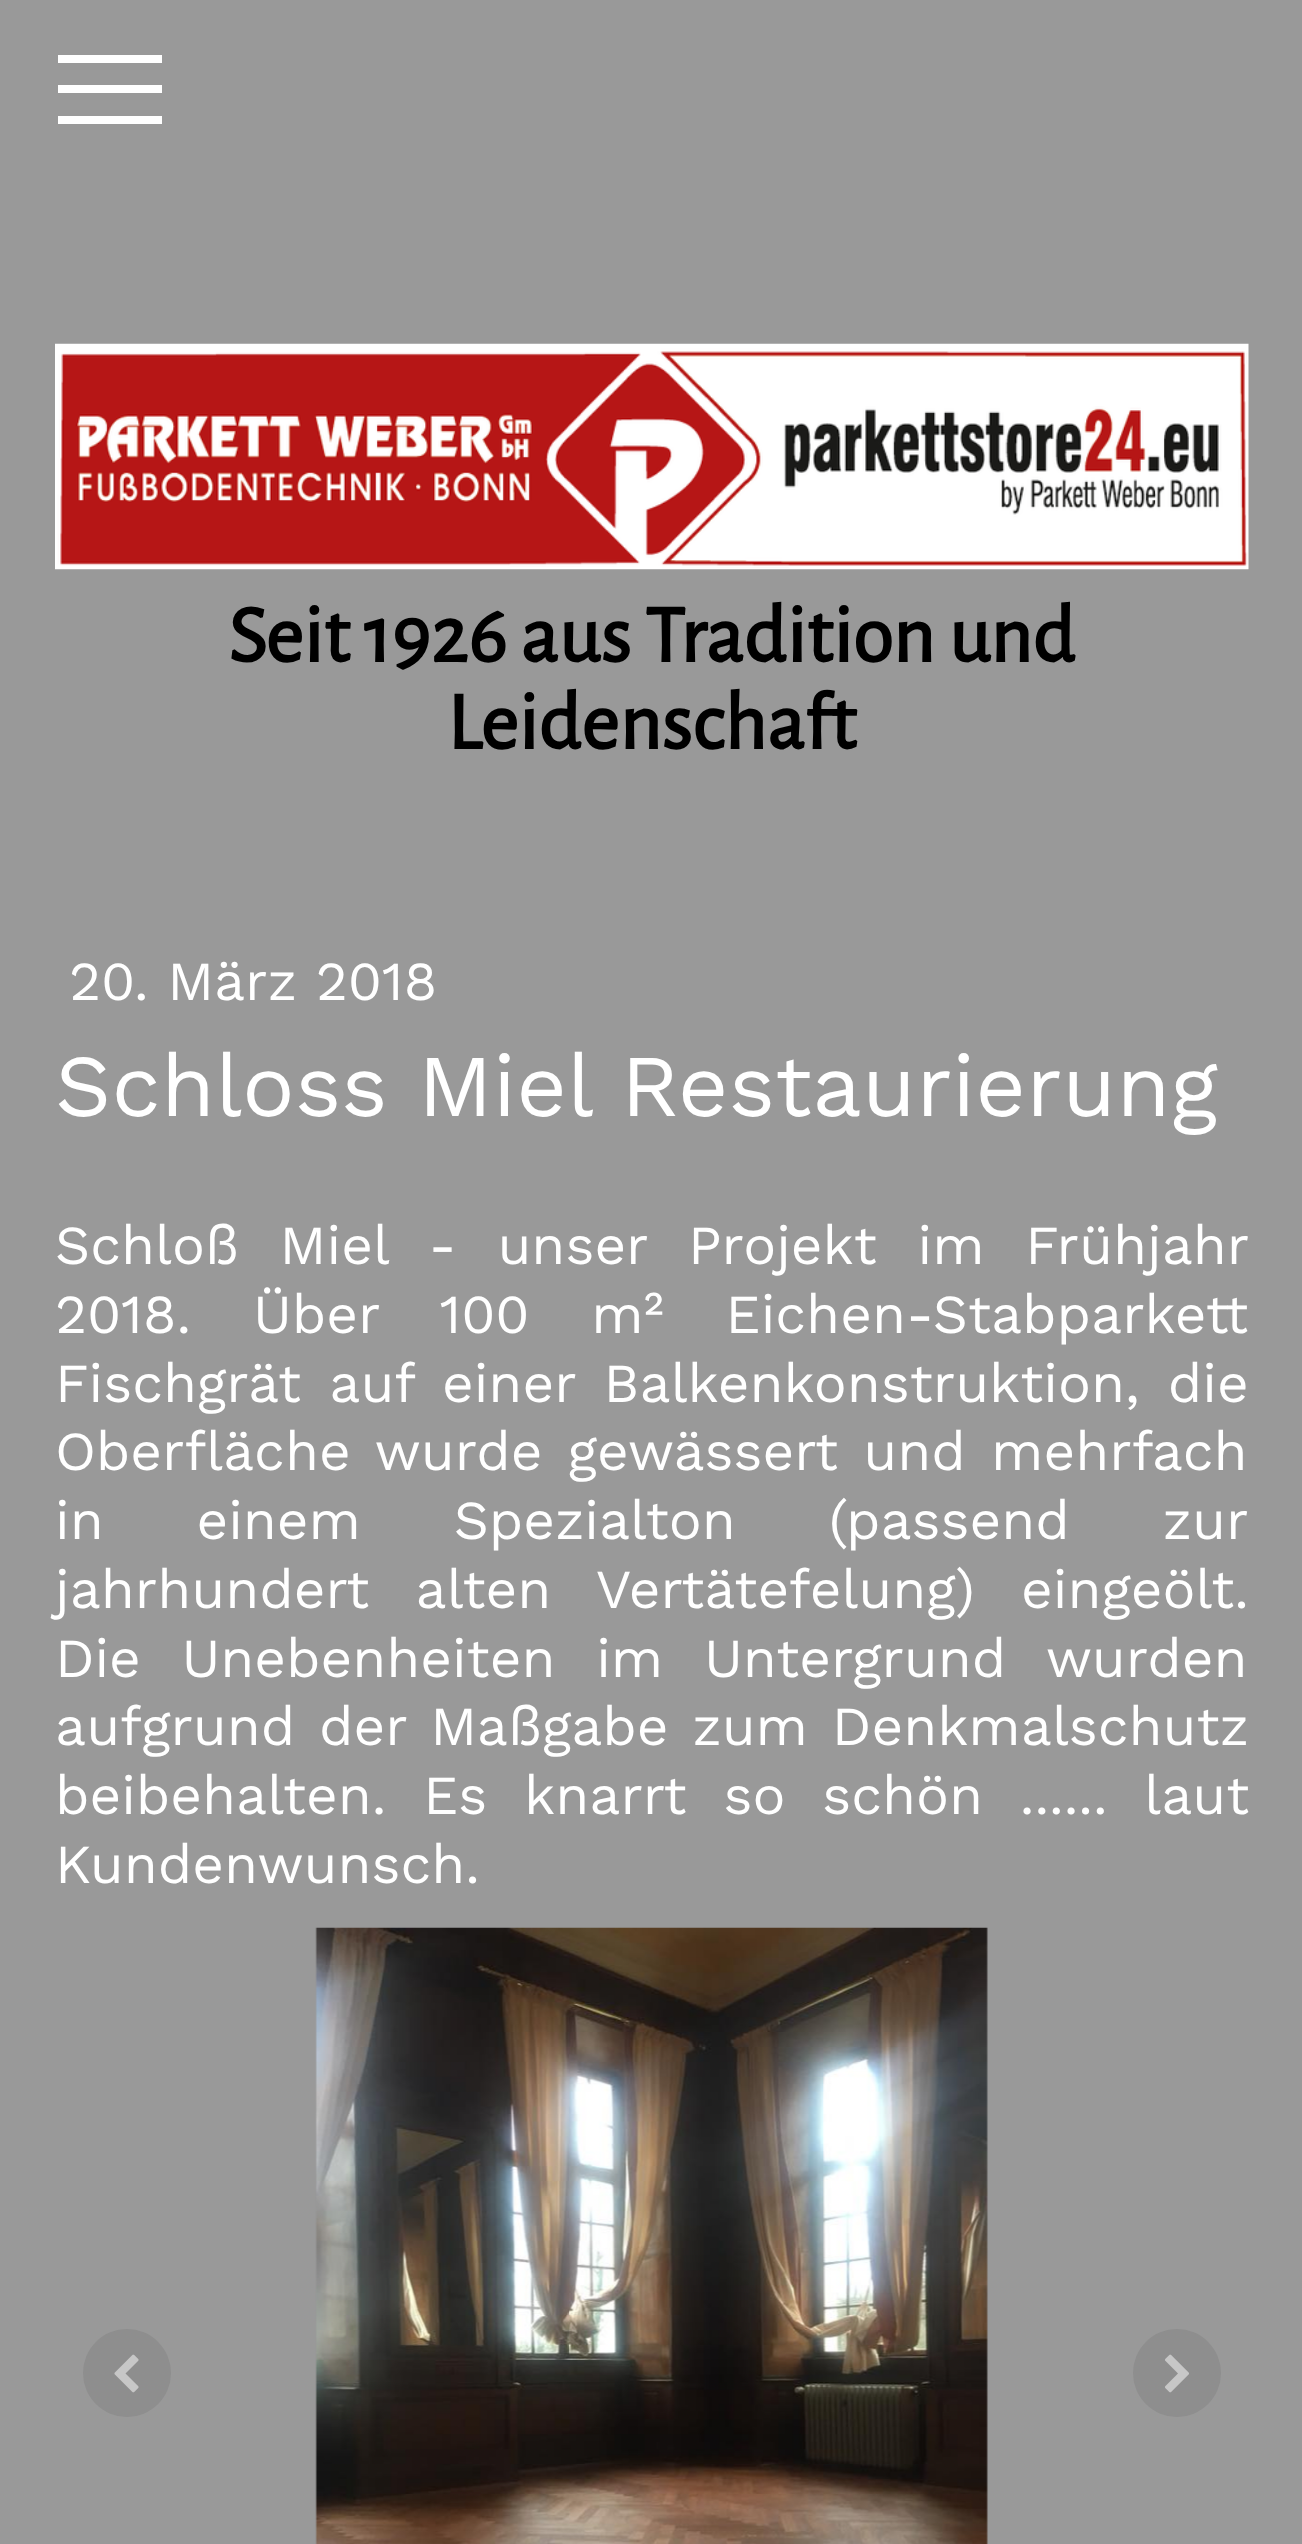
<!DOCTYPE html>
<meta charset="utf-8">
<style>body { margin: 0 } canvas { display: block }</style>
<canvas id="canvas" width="1302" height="2544"></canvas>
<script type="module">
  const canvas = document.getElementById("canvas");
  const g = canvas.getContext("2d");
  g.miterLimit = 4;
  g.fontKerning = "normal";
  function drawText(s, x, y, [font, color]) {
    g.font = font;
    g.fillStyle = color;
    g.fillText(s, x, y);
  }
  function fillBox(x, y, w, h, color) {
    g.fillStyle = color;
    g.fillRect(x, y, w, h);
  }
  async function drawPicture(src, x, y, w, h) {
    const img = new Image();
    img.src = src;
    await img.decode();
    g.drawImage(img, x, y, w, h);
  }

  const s1 = ["bold 82.5px Alegreya Sans", "#000000"];
  const s2 = ["55px Work Sans", "#FFFFFF"];
  const s3 = ["88px Work Sans", "#FFFFFF"];

  fillBox(0, 0, 1302, 2544, "#999999");
  fillBox(58, 85, 104, 8, "#FFFFFF");
  fillBox(58, 55, 104, 8, "#FFFFFF");
  fillBox(58, 116, 104, 8, "#FFFFFF");
  await drawPicture("pic1.png", 55, 343, 1194, 227);
  drawText("Seit 1926 aus Tradition und", 228, 662, s1);
  drawText("Leidenschaft", 447, 749, s1);
  drawText("20. März 2018", 69, 1000, s2);
  drawText("Schloss Miel Restaurierung", 55, 1116, s3);
  g.wordSpacing = "22px";
  drawText("Schloß Miel - unser Projekt im Frühjahr", 55, 1264, s2);
  g.wordSpacing = "43px";
  drawText("2018. Über 100 m² Eichen-Stabparkett", 55, 1333, s2);
  g.wordSpacing = "9.5px";
  drawText("Fischgrät auf einer Balkenkonstruktion, die", 55, 1402, s2);
  g.wordSpacing = "6.5px";
  drawText("Oberfläche wurde gewässert und mehrfach", 55, 1470, s2);
  g.wordSpacing = "74px";
  drawText("in einem Spezialton (passend zur", 55, 1539, s2);
  g.wordSpacing = "27.5px";
  drawText("jahrhundert alten Vertätefelung) eingeölt.", 55, 1608, s2);
  g.wordSpacing = "22px";
  drawText("Die Unebenheiten im Untergrund wurden", 55, 1677, s2);
  g.wordSpacing = "5px";
  drawText("aufgrund der Maßgabe zum Denkmalschutz", 55, 1745, s2);
  g.wordSpacing = "18px";
  drawText("beibehalten. Es knarrt so schön ...... laut", 55, 1814, s2);
  g.wordSpacing = "0px";
  drawText("Kundenwunsch.", 55, 1883, s2);
  await drawPicture("pic2.png", 315, 1927, 673, 617);
  g.fillStyle = "#8E8E8E";
  g.beginPath();
  g.arc(127, 2373, 44, 0, Math.PI * 2);
  g.fill();
  await drawPicture("pic3.png", 114, 2354, 25, 39);
  g.beginPath();
  g.arc(1177, 2373, 44, 0, Math.PI * 2);
  g.fill();
  await drawPicture("pic4.png", 1165, 2354, 24, 39);
</script>
